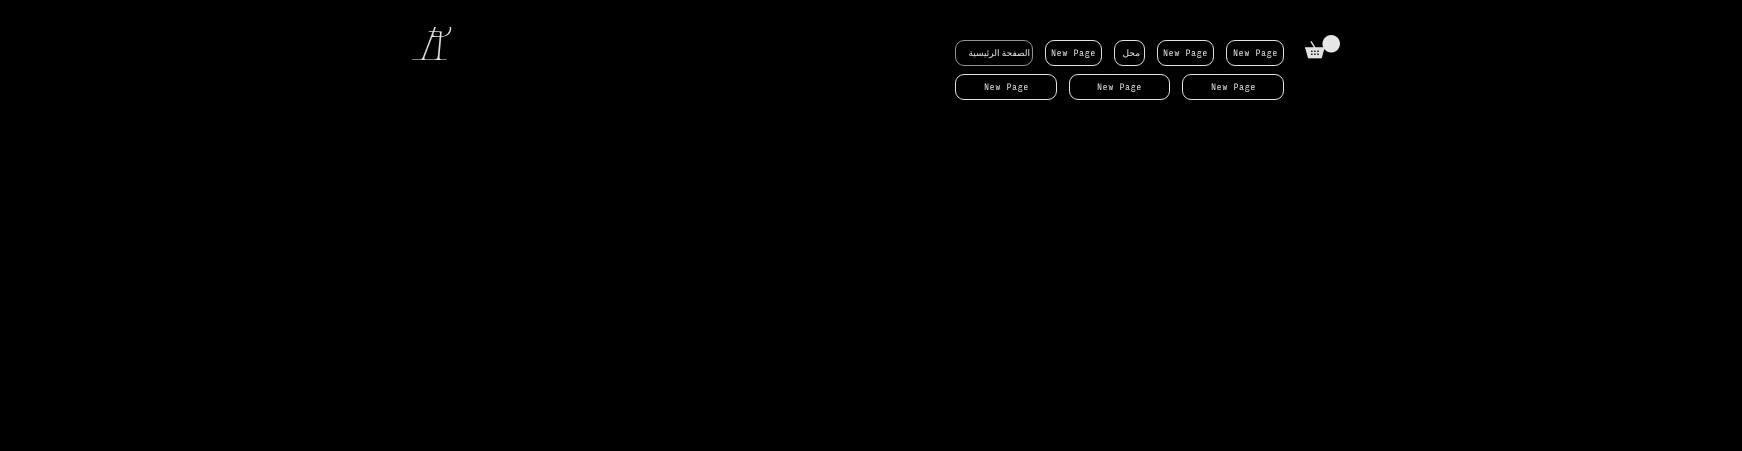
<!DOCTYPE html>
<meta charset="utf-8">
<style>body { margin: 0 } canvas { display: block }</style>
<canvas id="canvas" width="1742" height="451"></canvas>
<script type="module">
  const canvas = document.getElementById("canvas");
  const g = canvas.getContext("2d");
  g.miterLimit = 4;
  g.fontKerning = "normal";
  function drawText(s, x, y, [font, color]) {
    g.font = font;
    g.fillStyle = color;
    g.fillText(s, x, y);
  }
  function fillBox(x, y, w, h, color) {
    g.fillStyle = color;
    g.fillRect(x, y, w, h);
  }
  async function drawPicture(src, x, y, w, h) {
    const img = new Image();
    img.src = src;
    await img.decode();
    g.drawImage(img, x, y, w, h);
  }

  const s1 = ["50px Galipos", "#E1E1E1"];
  const s2 = ["9px DejaVu Sans", "#E1E1E1"];
  const s3 = ["9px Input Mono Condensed", "#E1E1E1"];

  fillBox(0, 0, 1742, 451, "#000000");
  g.save();
  g.beginPath();
  g.rect(401, 27, 72, 40);
  g.clip();
  g.letterSpacing = "5px";
  drawText("R", 416, 60, s1);
  g.restore();
  g.beginPath();
  g.roundRect(955.5, 40.5, 77, 25, 8.5);
  g.strokeStyle = "#929292";
  g.stroke();
  g.letterSpacing = "0.5px";
  g.wordSpacing = "-1px";
  g.direction = "rtl";
  drawText("الصفحة الرئيسية", 1030, 56, s2);
  g.beginPath();
  g.roundRect(1045.5, 40.5, 56, 25, 8.5);
  g.strokeStyle = "#E1E1E1";
  g.stroke();
  g.wordSpacing = "0px";
  g.direction = "ltr";
  drawText("New Page", 1051, 56, s3);
  g.beginPath();
  g.roundRect(1114.5, 40.5, 30, 25, 8.5);
  g.stroke();
  g.direction = "rtl";
  drawText("محل", 1140, 56, s2);
  g.beginPath();
  g.roundRect(1157.5, 40.5, 56, 25, 8.5);
  g.stroke();
  g.direction = "ltr";
  drawText("New Page", 1163, 56, s3);
  g.beginPath();
  g.roundRect(1226.5, 40.5, 57, 25, 8.5);
  g.stroke();
  drawText("New Page", 1233, 56, s3);
  g.beginPath();
  g.roundRect(955.5, 74.5, 101, 25, 8.5);
  g.stroke();
  drawText("New Page", 984, 90, s3);
  g.beginPath();
  g.roundRect(1069.5, 74.5, 100, 25, 8.5);
  g.stroke();
  drawText("New Page", 1097, 90, s3);
  g.beginPath();
  g.roundRect(1182.5, 74.5, 101, 25, 8.5);
  g.stroke();
  drawText("New Page", 1211, 90, s3);
  await drawPicture("pic1.png", 1305, 35, 35, 24);
</script>
